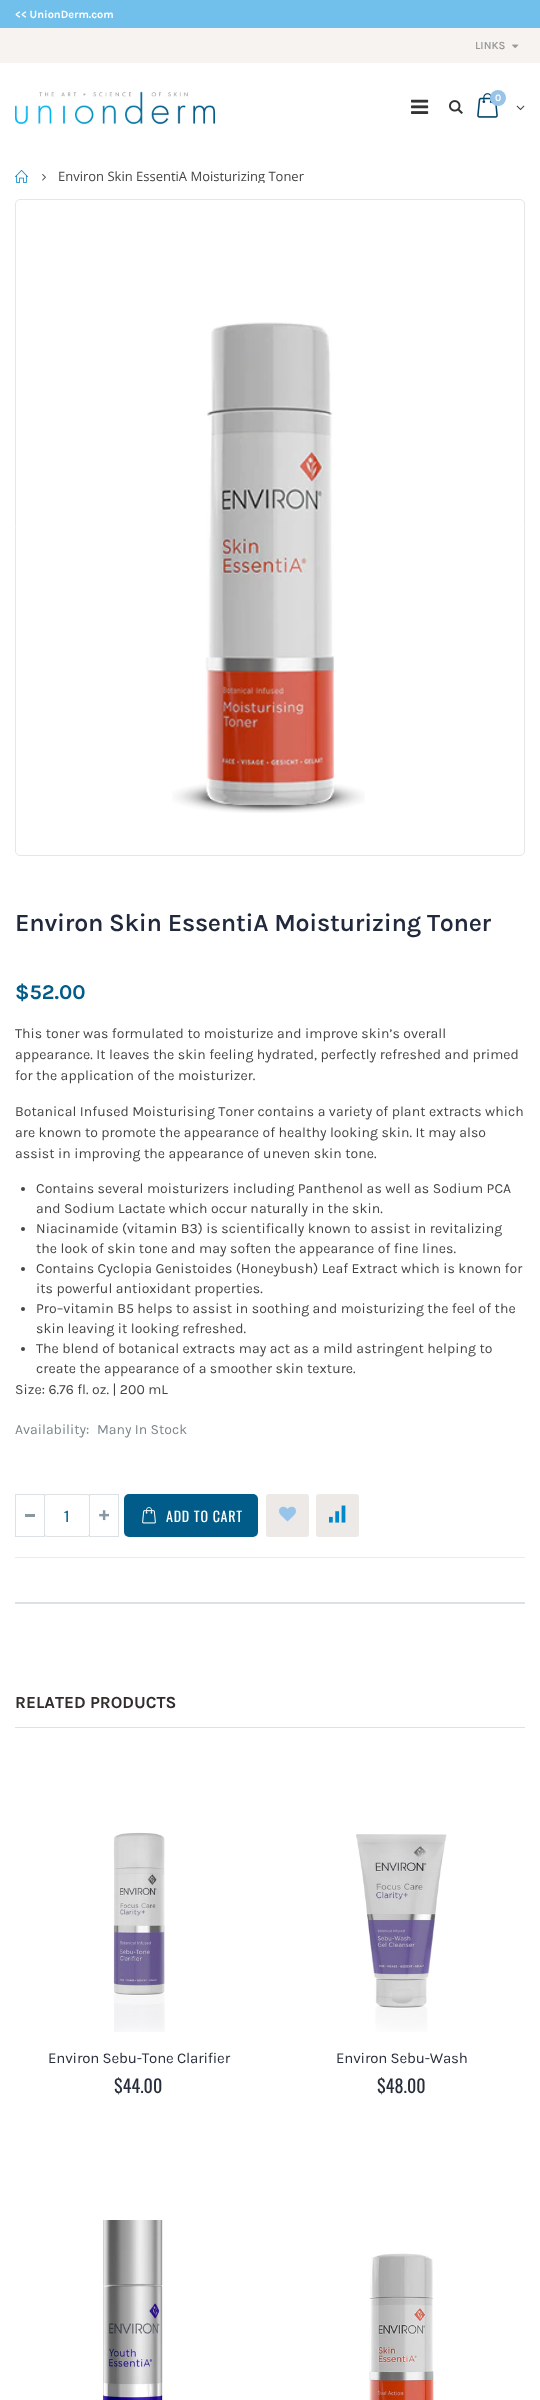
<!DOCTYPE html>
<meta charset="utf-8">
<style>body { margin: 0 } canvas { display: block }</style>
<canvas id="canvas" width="540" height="2400"></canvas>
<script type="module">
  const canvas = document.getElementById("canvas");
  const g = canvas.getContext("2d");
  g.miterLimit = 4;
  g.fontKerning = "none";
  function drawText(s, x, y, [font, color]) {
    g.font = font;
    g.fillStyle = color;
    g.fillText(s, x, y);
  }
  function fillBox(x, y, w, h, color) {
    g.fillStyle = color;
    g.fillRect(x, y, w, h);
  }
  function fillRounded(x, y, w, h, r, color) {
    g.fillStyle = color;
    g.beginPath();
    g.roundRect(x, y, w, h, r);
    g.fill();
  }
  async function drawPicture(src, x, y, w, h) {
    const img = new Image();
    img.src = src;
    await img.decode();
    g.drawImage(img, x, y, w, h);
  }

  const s1 = ["bold 11px Karla", "#FFFFFF"];
  const s2 = ["600 11px Karla", "#999999"];
  const s3 = ["600 10px Karla", "#FFFFFF"];
  const s4 = ["13px Open Sans", "#444444"];
  const s5 = ["600 25px Karla", "#21293C"];
  const s6 = ["bold 21px Karla", "#015C89"];
  const s7 = ["14px Karla", "#444444"];
  const s8 = ["14px Karla", "#7B858A"];
  const s9 = ["14px Oswald", "#015C89"];
  const s10 = ["14px Oswald", "#FFFFFF"];
  const s11 = ["bold 17px Karla", "#302E2A"];
  const s12 = ["15px Karla", "#282D3B"];
  const s13 = ["18px Oswald", "#282D3B"];

  fillBox(0, 0, 540, 2400, "#FFFFFF");
  fillBox(0, 0, 540, 28, "#71C0EB");
  drawText("<< UnionDerm.com", 15, 18, s1);
  fillBox(0, 28, 540, 35, "#F6F3F1");
  drawText("LINKS", 475, 49, s2);
  await drawPicture("pic1.png", 512, 44, 7, 4);
  await drawPicture("pic2.png", 15, 91, 200, 34);
  await drawPicture("pic3.png", 477, 93, 21, 25);
  g.fillStyle = "#99C4EA";
  g.beginPath();
  g.arc(498, 98, 8, 0, Math.PI * 2);
  g.fill();
  drawText("0", 495, 101, s3);
  await drawPicture("pic4.png", 516, 105, 9, 6);
  await drawPicture("pic5.png", 411, 99, 18, 15);
  await drawPicture("pic6.png", 449, 100, 14, 14);
  await drawPicture("pic7.png", 15, 170, 13, 13);
  await drawPicture("pic8.png", 42, 173, 4, 8);
  g.save();
  g.beginPath();
  g.rect(15, 169, 510, 14);
  g.clip();
  drawText("Environ Skin EssentiA Moisturizing Toner", 58, 181, s4);
  g.restore();
  g.beginPath();
  g.roundRect(15.5, 199.5, 509, 656, 4.5);
  g.strokeStyle = "#E6E6E6";
  g.stroke();
  await drawPicture("pic9.png", 172, 322, 193, 491);
  g.letterSpacing = "-0.25px";
  drawText("Environ Skin EssentiA Moisturizing Toner", 15, 931, s5);
  g.letterSpacing = "0px";
  drawText("$52.00", 15, 999, s6);
  g.letterSpacing = "0.07px";
  drawText("This toner was formulated to moisturize and improve skin’s overall", 15, 1038, s7);
  drawText("appearance. It leaves the skin feeling hydrated, perfectly refreshed and primed", 15, 1059, s7);
  drawText("for the application of the moisturizer.", 15, 1080, s7);
  drawText("Botanical Infused Moisturising Toner contains a variety of plant extracts which", 15, 1116, s7);
  drawText("are known to promote the appearance of healthy looking skin. It may also", 15, 1137, s7);
  drawText("assist in improving the appearance of uneven skin tone.", 15, 1158, s7);
  g.beginPath();
  g.arc(23, 1189, 2, 0, Math.PI * 2);
  g.fill();
  drawText("Contains several moisturizers including Panthenol as well as Sodium PCA", 36, 1193, s7);
  drawText("and Sodium Lactate which occur naturally in the skin.", 36, 1213, s7);
  g.beginPath();
  g.arc(23, 1229, 2, 0, Math.PI * 2);
  g.fill();
  drawText("Niacinamide (vitamin B3) is scientifically known to assist in revitalizing", 36, 1233, s7);
  drawText("the look of skin tone and may soften the appearance of fine lines.", 36, 1253, s7);
  g.beginPath();
  g.arc(23, 1269, 2, 0, Math.PI * 2);
  g.fill();
  drawText("Contains Cyclopia Genistoides (Honeybush) Leaf Extract which is known for", 36, 1273, s7);
  drawText("its powerful antioxidant properties.", 36, 1293, s7);
  g.beginPath();
  g.arc(23, 1309, 2, 0, Math.PI * 2);
  g.fill();
  drawText("Pro–vitamin B5 helps to assist in soothing and moisturizing the feel of the", 36, 1313, s7);
  drawText("skin leaving it looking refreshed.", 36, 1333, s7);
  g.beginPath();
  g.arc(23, 1349, 2, 0, Math.PI * 2);
  g.fill();
  drawText("The blend of botanical extracts may act as a mild astringent helping to", 36, 1353, s7);
  drawText("create the appearance of a smoother skin texture.", 36, 1373, s7);
  drawText("Size: 6.76 fl. oz. | 200 mL", 15, 1394, s7);
  g.letterSpacing = "0px";
  drawText("Availability:", 15, 1434, s8);
  drawText("Many In Stock", 97, 1434, s8);
  fillBox(15, 1557, 510, 1, "#EBEBEB");
  g.beginPath();
  g.roundRect(44.5, 1494.5, 45, 42, 2.5);
  g.strokeStyle = "#E1E1E1";
  g.stroke();
  g.strokeStyle = "#DAE2E6";
  g.strokeRect(15.5, 1494.5, 29, 42);
  fillBox(25, 1514, 10, 3, "#8798A2");
  g.strokeRect(89.5, 1494.5, 29, 42);
  await drawPicture("pic10.png", 99, 1510, 10, 11);
  drawText("1", 64, 1522, s9);
  fillRounded(124, 1494, 134, 43, 5, "#015C89");
  await drawPicture("pic11.png", 142, 1507, 14, 17);
  g.letterSpacing = "0.75px";
  drawText("ADD TO CART", 166, 1522, s10);
  fillRounded(266, 1494, 43, 43, 3, "#EDE9E6");
  await drawPicture("pic12.png", 279, 1506, 17, 16);
  fillRounded(316, 1494, 43, 43, 3, "#EDE9E6");
  await drawPicture("pic13.png", 329, 1505, 17, 18);
  fillBox(15, 1602, 510, 2, "#DAE2E6");
  fillBox(15, 1727, 510, 1, "#E1E1E1");
  g.letterSpacing = "0px";
  drawText("RELATED PRODUCTS", 15, 1708, s11);
  await drawPicture("pic14.png", 113, 1832, 52, 200);
  g.letterSpacing = "-0.15px";
  drawText("Environ Sebu-Tone Clarifier", 48, 2063, s12);
  g.letterSpacing = "0px";
  drawText("$44.00", 114, 2093, s13);
  await drawPicture("pic15.png", 356, 1834, 91, 198);
  g.letterSpacing = "-0.15px";
  drawText("Environ Sebu-Wash", 336, 2063, s12);
  g.letterSpacing = "0px";
  drawText("$48.00", 377, 2093, s13);
  await drawPicture("pic16.png", 102, 2220, 61, 180);
  await drawPicture("pic17.png", 369, 2253, 65, 147);
</script>
